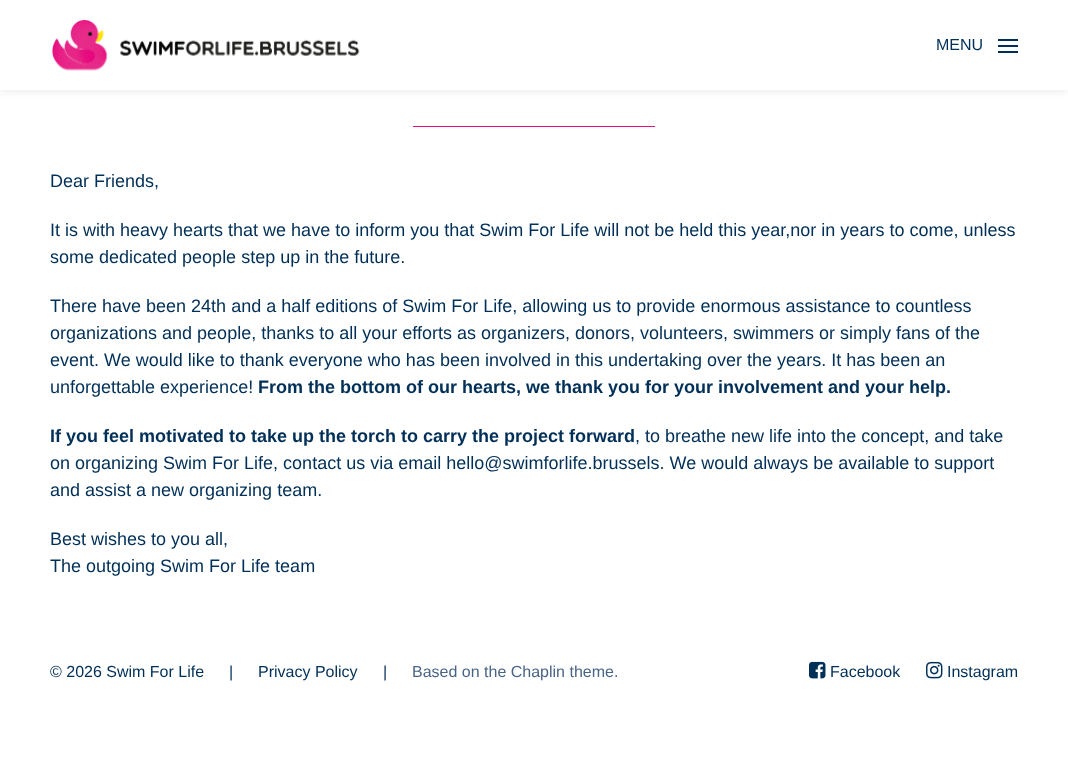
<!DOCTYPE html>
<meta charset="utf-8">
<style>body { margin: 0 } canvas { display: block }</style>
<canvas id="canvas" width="1068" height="764"></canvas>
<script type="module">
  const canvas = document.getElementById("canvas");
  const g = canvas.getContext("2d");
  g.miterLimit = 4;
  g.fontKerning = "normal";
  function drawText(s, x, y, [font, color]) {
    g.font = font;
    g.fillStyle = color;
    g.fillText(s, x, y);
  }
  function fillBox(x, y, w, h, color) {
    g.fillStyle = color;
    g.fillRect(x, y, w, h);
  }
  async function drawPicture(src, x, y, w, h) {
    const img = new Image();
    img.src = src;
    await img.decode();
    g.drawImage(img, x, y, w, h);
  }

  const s1 = ["16px Liberation Sans", "#002F57"];
  const s2 = ["18px Liberation Sans", "#002F57"];
  const s3 = ["bold 18px Liberation Sans", "#002F57"];
  const s4 = ["16px Liberation Sans", "#496586"];

  fillBox(0, 0, 1068, 764, "#FFFFFF");
  g.fillStyle = "rgba(0, 0, 0, 0.1)";
  g.filter = "blur(5px)";
  g.beginPath();
  g.rect(0, 0, 1068, 90);
  g.fill();
  g.filter = "none";
  fillBox(0, 0, 1068, 90, "#FFFFFF");
  await drawPicture("pic1.png", 52, 20, 308, 51);
  drawText("MENU", 936, 50, s1);
  fillBox(998, 39, 20, 2, "#002F57");
  fillBox(998, 45, 20, 2, "#002F57");
  fillBox(998, 51, 20, 2, "#002F57");
  fillBox(413, 126, 242, 1, "#E30E7D");
  drawText("Dear Friends,", 50, 187, s2);
  drawText("It is with heavy hearts that we have to inform you that Swim For Life will not be held this year,nor in years to come, unless", 50, 236, s2);
  drawText("some dedicated people step up in the future.", 50, 263, s2);
  drawText("There have been 24th and a half editions of Swim For Life, allowing us to provide enormous assistance to countless", 50, 312, s2);
  drawText("organizations and people, thanks to all your efforts as organizers, donors, volunteers, swimmers or simply fans of the", 50, 339, s2);
  drawText("event. We would like to thank everyone who has been involved in this undertaking over the years. It has been an", 50, 366, s2);
  drawText("unforgettable experience!", 50, 393, s2);
  drawText("From the bottom of our hearts, we thank you for your involvement and your help.", 258, 393, s3);
  drawText("If you feel motivated to take up the torch to carry the project forward", 50, 442, s3);
  drawText(", to breathe new life into the concept, and take", 635, 442, s2);
  drawText("on organizing Swim For Life, contact us via email hello@swimforlife.brussels. We would always be available to support", 50, 469, s2);
  drawText("and assist a new organizing team.", 50, 496, s2);
  drawText("Best wishes to you all,", 50, 545, s2);
  drawText("The outgoing Swim For Life team", 50, 572, s2);
  drawText("© 2026 Swim For Life", 50, 677, s1);
  drawText("|", 229, 677, s1);
  drawText("Privacy Policy", 258, 677, s1);
  drawText("|", 383, 677, s1);
  drawText("Based on the Chaplin theme.", 412, 677, s4);
  await drawPicture("pic2.png", 809, 661, 17, 18);
  drawText("Facebook", 830, 677, s1);
  await drawPicture("pic3.png", 926, 661, 17, 18);
  drawText("Instagram", 947, 677, s1);
</script>
